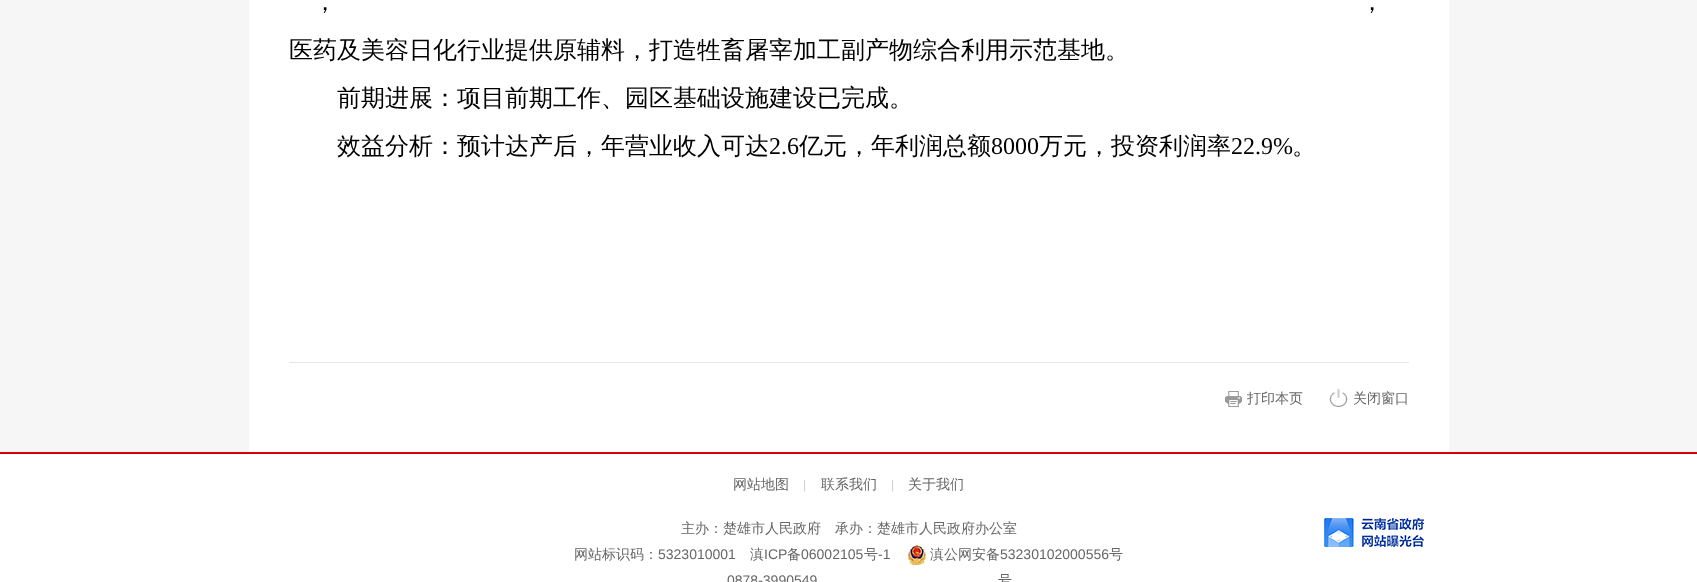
<!DOCTYPE html>
<meta charset="utf-8">
<style>body { margin: 0 } canvas { display: block }</style>
<canvas id="canvas" width="1697" height="582"></canvas>
<script type="module">
  const canvas = document.getElementById("canvas");
  const g = canvas.getContext("2d");
  g.miterLimit = 4;
  g.fontKerning = "normal";
  function drawText(s, x, y, [font, color]) {
    g.font = font;
    g.fillStyle = color;
    g.fillText(s, x, y);
  }
  function fillBox(x, y, w, h, color) {
    g.fillStyle = color;
    g.fillRect(x, y, w, h);
  }
  async function drawPicture(src, x, y, w, h) {
    const img = new Image();
    img.src = src;
    await img.decode();
    g.drawImage(img, x, y, w, h);
  }

  const s1 = ["500 24px WenQuanYi Zen Hei", "#000000"];
  const s2 = ["24px Liberation Serif", "#000000"];
  const s3 = ["500 14px WenQuanYi Zen Hei", "#666666"];
  const s4 = ["12px Liberation Sans", "#CECECE"];
  const s5 = ["14px Liberation Sans", "#666666"];

  fillBox(0, 0, 1697, 582, "#F6F6F6");
  fillBox(249, 0, 1200, 452, "#FFFFFF");
  drawText("，", 313, 10, s1);
  drawText("，", 1360, 10, s1);
  drawText("医药及美容日化行业提供原辅料，打造牲畜屠宰加工副产物综合利用示范基地。", 289, 58, s1);
  drawText("前期进展：项目前期工作、园区基础设施建设已完成。", 337, 106, s1);
  drawText("效益分析：预计达产后，年营业收入可达", 337, 154, s1);
  drawText("2.6", 769, 154, s2);
  drawText("亿元，年利润总额", 799, 154, s1);
  drawText("8000", 991, 154, s2);
  drawText("万元，投资利润率", 1039, 154, s1);
  drawText("22.9%", 1231, 154, s2);
  drawText("。", 1292, 154, s1);
  fillBox(289, 362, 1120, 1, "#E7E7E7");
  await drawPicture("pic1.png", 1225, 391, 17, 16);
  drawText("打印本页", 1247, 403, s3);
  await drawPicture("pic2.png", 1329, 389, 19, 18);
  drawText("关闭窗口", 1353, 403, s3);
  fillBox(0, 454, 1697, 128, "#FFFFFF");
  fillBox(0, 452, 1697, 2, "#D60000");
  drawText("网站地图", 733, 489, s3);
  drawText("|", 803, 489, s4);
  drawText("联系我们", 821, 489, s3);
  drawText("|", 891, 489, s4);
  drawText("关于我们", 908, 489, s3);
  drawText("主办：楚雄市人民政府", 681, 533, s3);
  drawText("承办：楚雄市人民政府办公室", 835, 533, s3);
  await drawPicture("pic3.png", 1324, 518, 100, 29);
  drawText("网站标识码：", 574, 559, s3);
  drawText("5323010001", 658, 559, s5);
  drawText("滇", 750, 559, s3);
  drawText("ICP", 764, 559, s5);
  drawText("备", 787, 559, s3);
  drawText("06002105", 801, 559, s5);
  drawText("号", 864, 559, s3);
  drawText("-1", 878, 559, s5);
  await drawPicture("pic4.png", 908, 545, 18, 20);
  drawText("滇公网安备", 930, 559, s3);
  drawText("53230102000556", 1000, 559, s5);
  drawText("号", 1109, 559, s3);
  drawText("0878-3990549", 727, 585, s5);
  drawText("号", 998, 585, s3);
</script>
